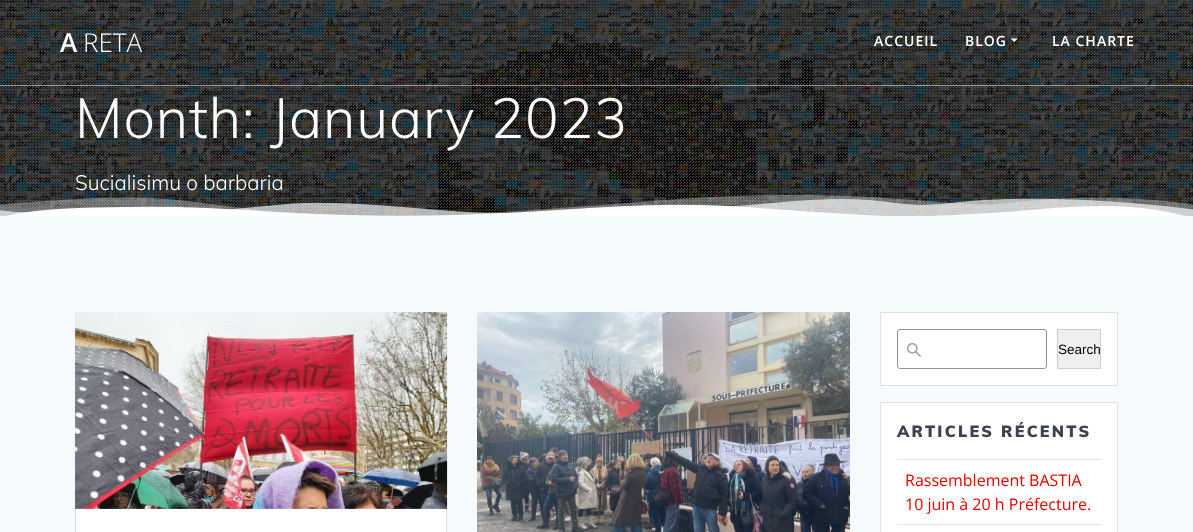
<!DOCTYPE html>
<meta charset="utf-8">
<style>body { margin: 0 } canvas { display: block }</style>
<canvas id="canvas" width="1193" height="532"></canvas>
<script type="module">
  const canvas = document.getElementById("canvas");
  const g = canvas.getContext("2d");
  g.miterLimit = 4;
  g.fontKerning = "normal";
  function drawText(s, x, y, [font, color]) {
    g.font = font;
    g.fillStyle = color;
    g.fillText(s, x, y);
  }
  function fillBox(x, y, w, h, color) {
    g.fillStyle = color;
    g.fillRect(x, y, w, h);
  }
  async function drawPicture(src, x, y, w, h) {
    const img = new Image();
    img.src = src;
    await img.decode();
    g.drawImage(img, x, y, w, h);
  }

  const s1 = ["600 26px Open Sans", "#FFFFFF"];
  const s2 = ["300 26px Open Sans", "#FFFFFF"];
  const s3 = ["600 14px Open Sans", "#FFFFFF"];
  const s4 = ["300 56px Muli", "#FFFFFF"];
  const s5 = ["300 20.75px Muli", "#FFFFFF"];
  const s6 = ["13.5px Liberation Sans", "#000000"];
  const s7 = ["900 16px Muli", "#3C424F"];
  const s8 = ["16px Open Sans", "#E30000"];

  fillBox(0, 0, 1193, 532, "#FFFFFF");
  await drawPicture("pic2.png", 0, 0, 1193, 216);
  await drawPicture("pic3.png", 0, 0, 1192, 216);
  fillBox(0, 85, 1193, 1, "rgba(255, 255, 255, 0.5)");
  drawText("A", 60, 52, s1);
  drawText("RETA", 83, 52, s2);
  g.letterSpacing = "1px";
  drawText("ACCUEIL", 874, 46, s3);
  drawText("BLOG", 965, 46, s3);
  await drawPicture("pic1.png", 1011, 38, 7, 4);
  drawText("LA CHARTE", 1052, 46, s3);
  g.letterSpacing = "0.9px";
  drawText("Month: January 2023", 75, 138, s4);
  g.letterSpacing = "0px";
  drawText("Sucialisimu o barbaria", 75, 190, s5);
  await drawPicture("pic4.png", 0, 194, 1193, 22);
  fillBox(0, 216, 1193, 316, "#F5FAFD");
  fillBox(76, 508, 370, 24, "#FFFFFF");
  g.strokeStyle = "#E0E1E1";
  g.strokeRect(75.5, 312.5, 371, 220);
  await drawPicture("pic5.png", 75, 312, 373, 197);
  await drawPicture("pic6.png", 477, 312, 373, 220);
  g.beginPath();
  g.rect(880.5, 312.5, 237, 73);
  g.fill();
  g.stroke();
  await drawPicture("pic7.png", 907, 343, 14, 14);
  g.beginPath();
  g.roundRect(897.5, 329.5, 149, 39, 2.5);
  g.strokeStyle = "#949494";
  g.stroke();
  g.fillStyle = "#EFEFEF";
  g.beginPath();
  g.rect(1057.5, 329.5, 43, 39);
  g.fill();
  g.strokeStyle = "#CCCCCC";
  g.stroke();
  drawText("Search", 1058, 354, s6);
  g.fillStyle = "#FFFFFF";
  g.beginPath();
  g.rect(880.5, 402.5, 237, 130);
  g.fill();
  g.strokeStyle = "#E0E1E1";
  g.stroke();
  g.letterSpacing = "2.25px";
  drawText("ARTICLES RÉCENTS", 897, 437, s7);
  fillBox(897, 459, 204, 1, "#E6E6E6");
  g.letterSpacing = "0px";
  drawText("Rassemblement BASTIA", 905, 486, s8);
  drawText("10 juin à 20 h Préfecture.", 905, 510, s8);
  fillBox(897, 524, 204, 1, "#E6E6E6");
</script>
